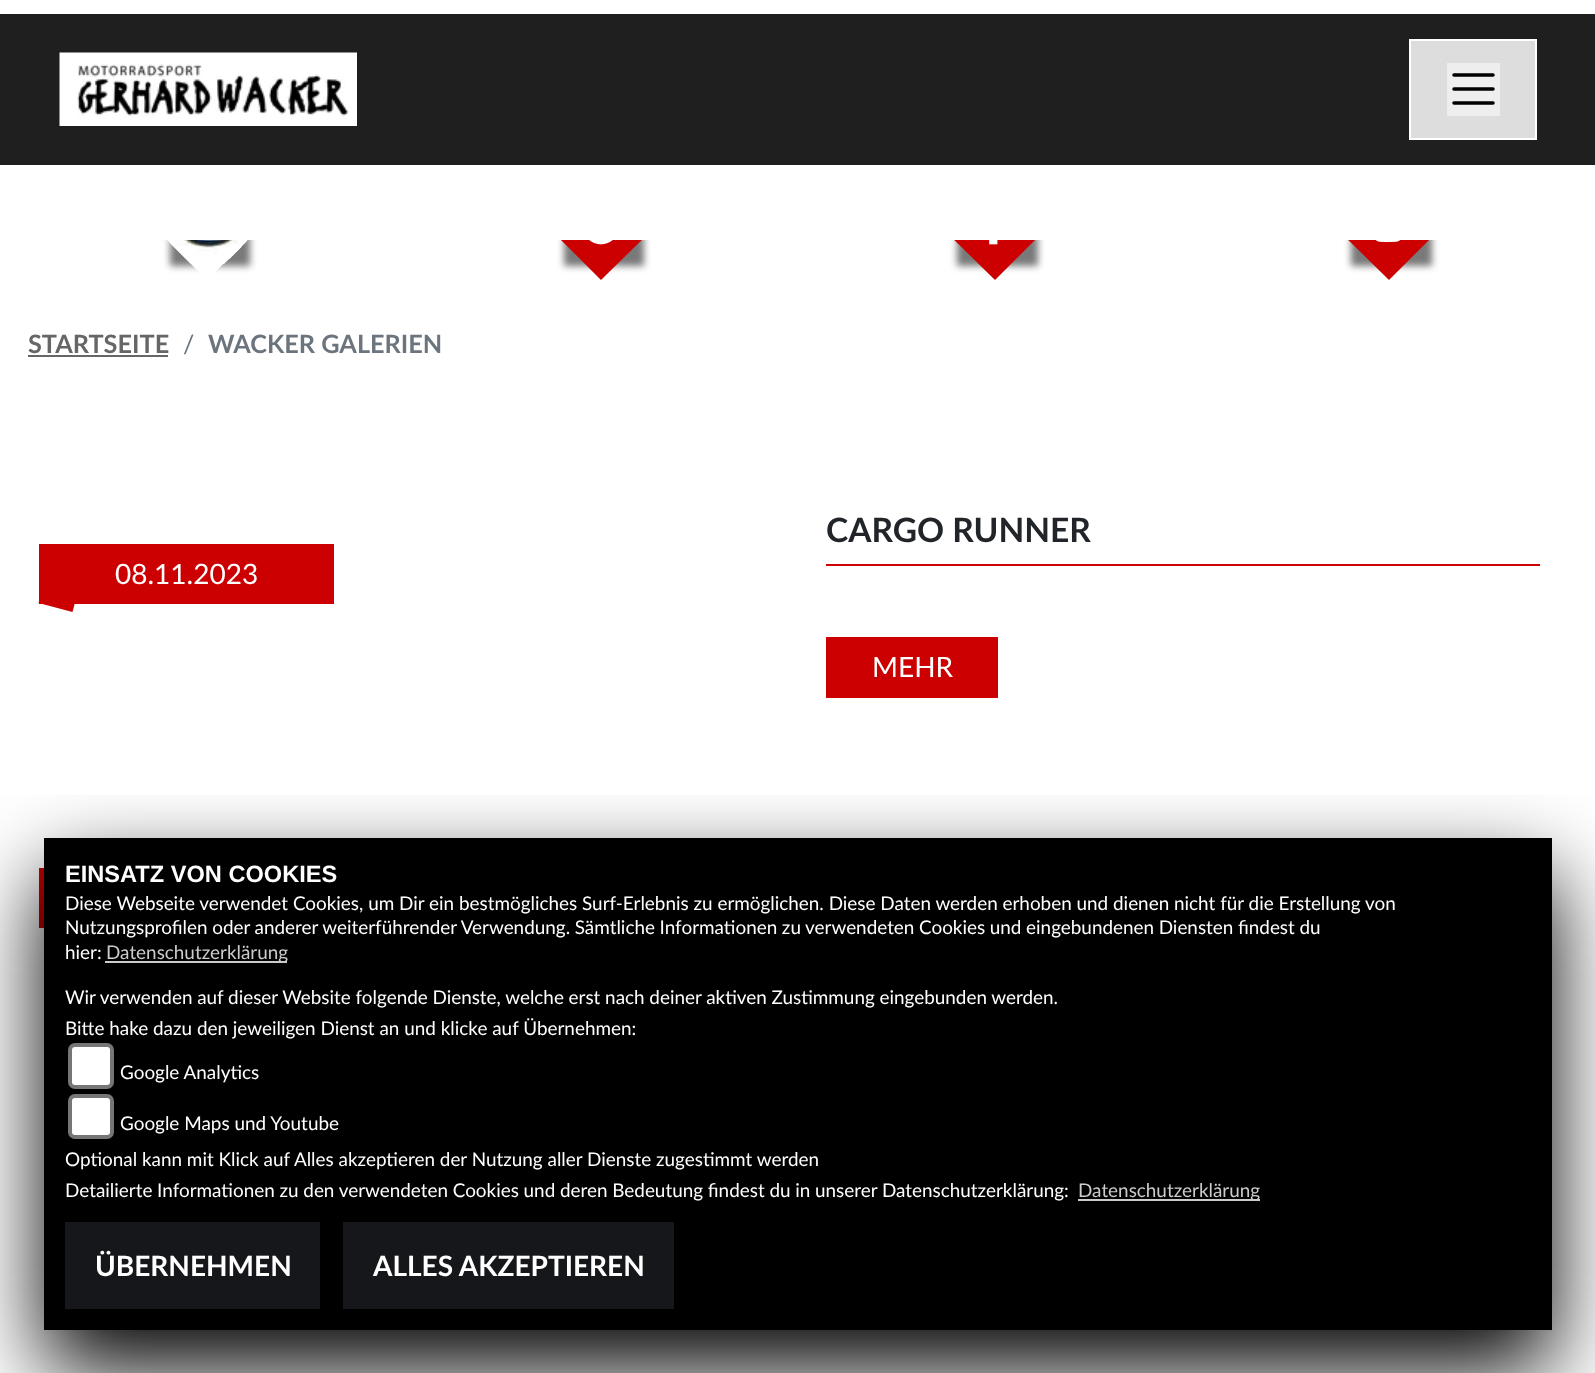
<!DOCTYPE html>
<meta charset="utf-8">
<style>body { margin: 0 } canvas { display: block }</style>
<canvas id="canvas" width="1595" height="1373"></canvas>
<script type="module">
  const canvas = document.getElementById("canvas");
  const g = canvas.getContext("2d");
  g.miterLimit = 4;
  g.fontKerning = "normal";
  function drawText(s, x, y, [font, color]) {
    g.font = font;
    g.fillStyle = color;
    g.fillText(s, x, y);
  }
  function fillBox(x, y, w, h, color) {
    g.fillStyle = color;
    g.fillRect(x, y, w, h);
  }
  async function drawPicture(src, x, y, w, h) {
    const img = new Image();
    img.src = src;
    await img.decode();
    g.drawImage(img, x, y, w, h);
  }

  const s1 = ["bold 25.25px Lato", "#666666"];
  const s2 = ["25.25px Lato", "#6C757D"];
  const s3 = ["bold 25.25px Lato", "#6C757D"];
  const s4 = ["28px Lato", "#FFFFFF"];
  const s5 = ["bold 33.5px Lato", "#212529"];
  const s6 = ["bold 23.6px Liberation Sans", "#FFFFFF"];
  const s7 = ["18.9px Lato", "#FFFFFF"];
  const s8 = ["18.9px Lato", "#CCCCCC"];
  const s9 = ["bold 28px Lato", "#FFFFFF"];

  fillBox(0, 0, 1595, 1373, "#FFFFFF");
  fillBox(0, 14, 1595, 151, "#1F1F1F");
  await drawPicture("pic1.png", 59, 52, 298, 74);
  g.fillStyle = "#DDDDDD";
  g.beginPath();
  g.rect(1410, 40, 126, 99);
  g.fill();
  g.strokeStyle = "#FFFFFF";
  g.lineWidth = 2;
  g.stroke();
  fillBox(1447, 63, 53, 53, "#EEEEEE");
  g.beginPath();
  g.moveTo(1454, 75);
  g.lineTo(1493, 75);
  g.moveTo(1454, 89);
  g.lineTo(1493, 89);
  g.moveTo(1454, 103);
  g.lineTo(1493, 103);
  g.strokeStyle = "#000000";
  g.lineWidth = 3.5;
  g.lineCap = "round";
  g.stroke();
  g.fillStyle = "rgba(31, 31, 31, 0.6)";
  g.filter = "blur(3.5px)";
  g.beginPath();
  g.rect(170, 186, 80, 80);
  g.fill();
  g.filter = "none";
  g.fillStyle = "#FFFFFF";
  g.beginPath();
  g.moveTo(207, 171);
  g.lineTo(262, 226);
  g.lineTo(207, 280);
  g.lineTo(153, 226);
  g.closePath();
  g.fill();
  g.beginPath();
  g.moveTo(170, 209);
  g.lineTo(192, 187);
  g.lineTo(223, 187);
  g.lineTo(247, 211);
  g.lineTo(247, 241);
  g.lineTo(224, 264);
  g.lineTo(191, 264);
  g.lineTo(170, 243);
  g.closePath();
  g.fill();
  g.fillStyle = "rgba(31, 31, 31, 0.6)";
  g.filter = "blur(3.5px)";
  g.beginPath();
  g.rect(564, 186, 80, 80);
  g.fill();
  g.filter = "none";
  g.fillStyle = "#CC0000";
  g.beginPath();
  g.moveTo(601, 171);
  g.lineTo(656, 226);
  g.lineTo(601, 280);
  g.lineTo(547, 226);
  g.closePath();
  g.fill();
  g.fillStyle = "rgba(31, 31, 31, 0.6)";
  g.filter = "blur(3.5px)";
  g.beginPath();
  g.rect(957, 186, 81, 80);
  g.fill();
  g.filter = "none";
  g.fillStyle = "#CC0000";
  g.beginPath();
  g.moveTo(995, 171);
  g.lineTo(1049, 226);
  g.lineTo(995, 280);
  g.lineTo(940, 226);
  g.closePath();
  g.fill();
  g.fillStyle = "rgba(31, 31, 31, 0.6)";
  g.filter = "blur(3.5px)";
  g.beginPath();
  g.rect(1351, 186, 81, 80);
  g.fill();
  g.filter = "none";
  g.fillStyle = "#CC0000";
  g.beginPath();
  g.moveTo(1389, 171);
  g.lineTo(1443, 226);
  g.lineTo(1389, 280);
  g.lineTo(1334, 226);
  g.closePath();
  g.fill();
  fillBox(163, 171, 1280, 69, "#FFFFFF");
  await drawPicture("pic2.png", 175, 240, 67, 19);
  await drawPicture("pic3.png", 589, 240, 24, 5);
  await drawPicture("pic4.png", 989, 240, 9, 5);
  await drawPicture("pic5.png", 1375, 240, 26, 2);
  drawText("STARTSEITE", 28, 353, s1);
  fillBox(28, 355, 140, 2, "#666666");
  drawText("/", 183, 353, s2);
  drawText("WACKER GALERIEN", 208, 353, s3);
  g.fillStyle = "#CC0000";
  g.beginPath();
  g.moveTo(43, 586);
  g.lineTo(77, 595);
  g.lineTo(72.5, 612);
  g.lineTo(38.5, 603);
  g.closePath();
  g.fill();
  fillBox(39, 544, 295, 60, "#CC0000");
  drawText("08.11.2023", 115, 584, s4);
  drawText("CARGO RUNNER", 826, 542, s5);
  fillBox(826, 564, 714, 2, "#CC0000");
  fillBox(826, 637, 172, 61, "#CC0000");
  drawText("MEHR", 872, 677, s4);
  fillBox(39, 868, 5, 60, "#CC0000");
  g.save();
  g.beginPath();
  g.rect(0, 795, 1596, 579);
  g.clip();
  g.fillStyle = "#000000";
  g.filter = "blur(44px)";
  g.beginPath();
  g.rect(44, 877, 1508, 492);
  g.fill();
  g.filter = "none";
  g.restore();
  fillBox(44, 838, 1508, 492, "#000000");
  drawText("EINSATZ VON COOKIES", 65, 882, s6);
  drawText("Diese Webseite verwendet Cookies, um Dir ein bestmögliches Surf-Erlebnis zu ermöglichen. Diese Daten werden erhoben und dienen nicht für die Erstellung von", 65, 910, s7);
  g.wordSpacing = "-0.2px";
  drawText("Nutzungsprofilen oder anderer weiterführender Verwendung. Sämtliche Informationen zu verwendeten Cookies und eingebundenen Diensten findest du", 65, 934, s7);
  g.wordSpacing = "0px";
  drawText("hier:", 65, 959, s7);
  fillBox(105, 961, 182, 2, "#CCCCCC");
  drawText("Datenschutzerklärung", 106, 959, s8);
  g.wordSpacing = "-0.1px";
  drawText("Wir verwenden auf dieser Website folgende Dienste, welche erst nach deiner aktiven Zustimmung eingebunden werden.", 65, 1004, s7);
  g.wordSpacing = "0px";
  drawText("Bitte hake dazu den jeweiligen Dienst an und klicke auf Übernehmen:", 65, 1035, s7);
  g.beginPath();
  g.roundRect(70, 1045, 42, 42, 5);
  g.fill();
  g.strokeStyle = "#767676";
  g.lineWidth = 4;
  g.stroke();
  drawText("Google Analytics", 120, 1079, s7);
  g.beginPath();
  g.roundRect(70, 1096, 42, 41, 5);
  g.fill();
  g.stroke();
  drawText("Google Maps und Youtube", 120, 1130, s7);
  drawText("Optional kann mit Klick auf Alles akzeptieren der Nutzung aller Dienste zugestimmt werden", 65, 1166, s7);
  g.wordSpacing = "-0.1px";
  drawText("Detailierte Informationen zu den verwendeten Cookies und deren Bedeutung findest du in unserer Datenschutzerklärung:", 65, 1197, s7);
  fillBox(1078, 1199, 182, 2, "#CCCCCC");
  g.wordSpacing = "0px";
  drawText("Datenschutzerklärung", 1078, 1197, s8);
  fillBox(65, 1222, 255, 87, "#16171A");
  drawText("ÜBERNEHMEN", 95, 1276, s9);
  fillBox(343, 1222, 331, 87, "#16171A");
  drawText("ALLES AKZEPTIEREN", 373, 1276, s9);
</script>
